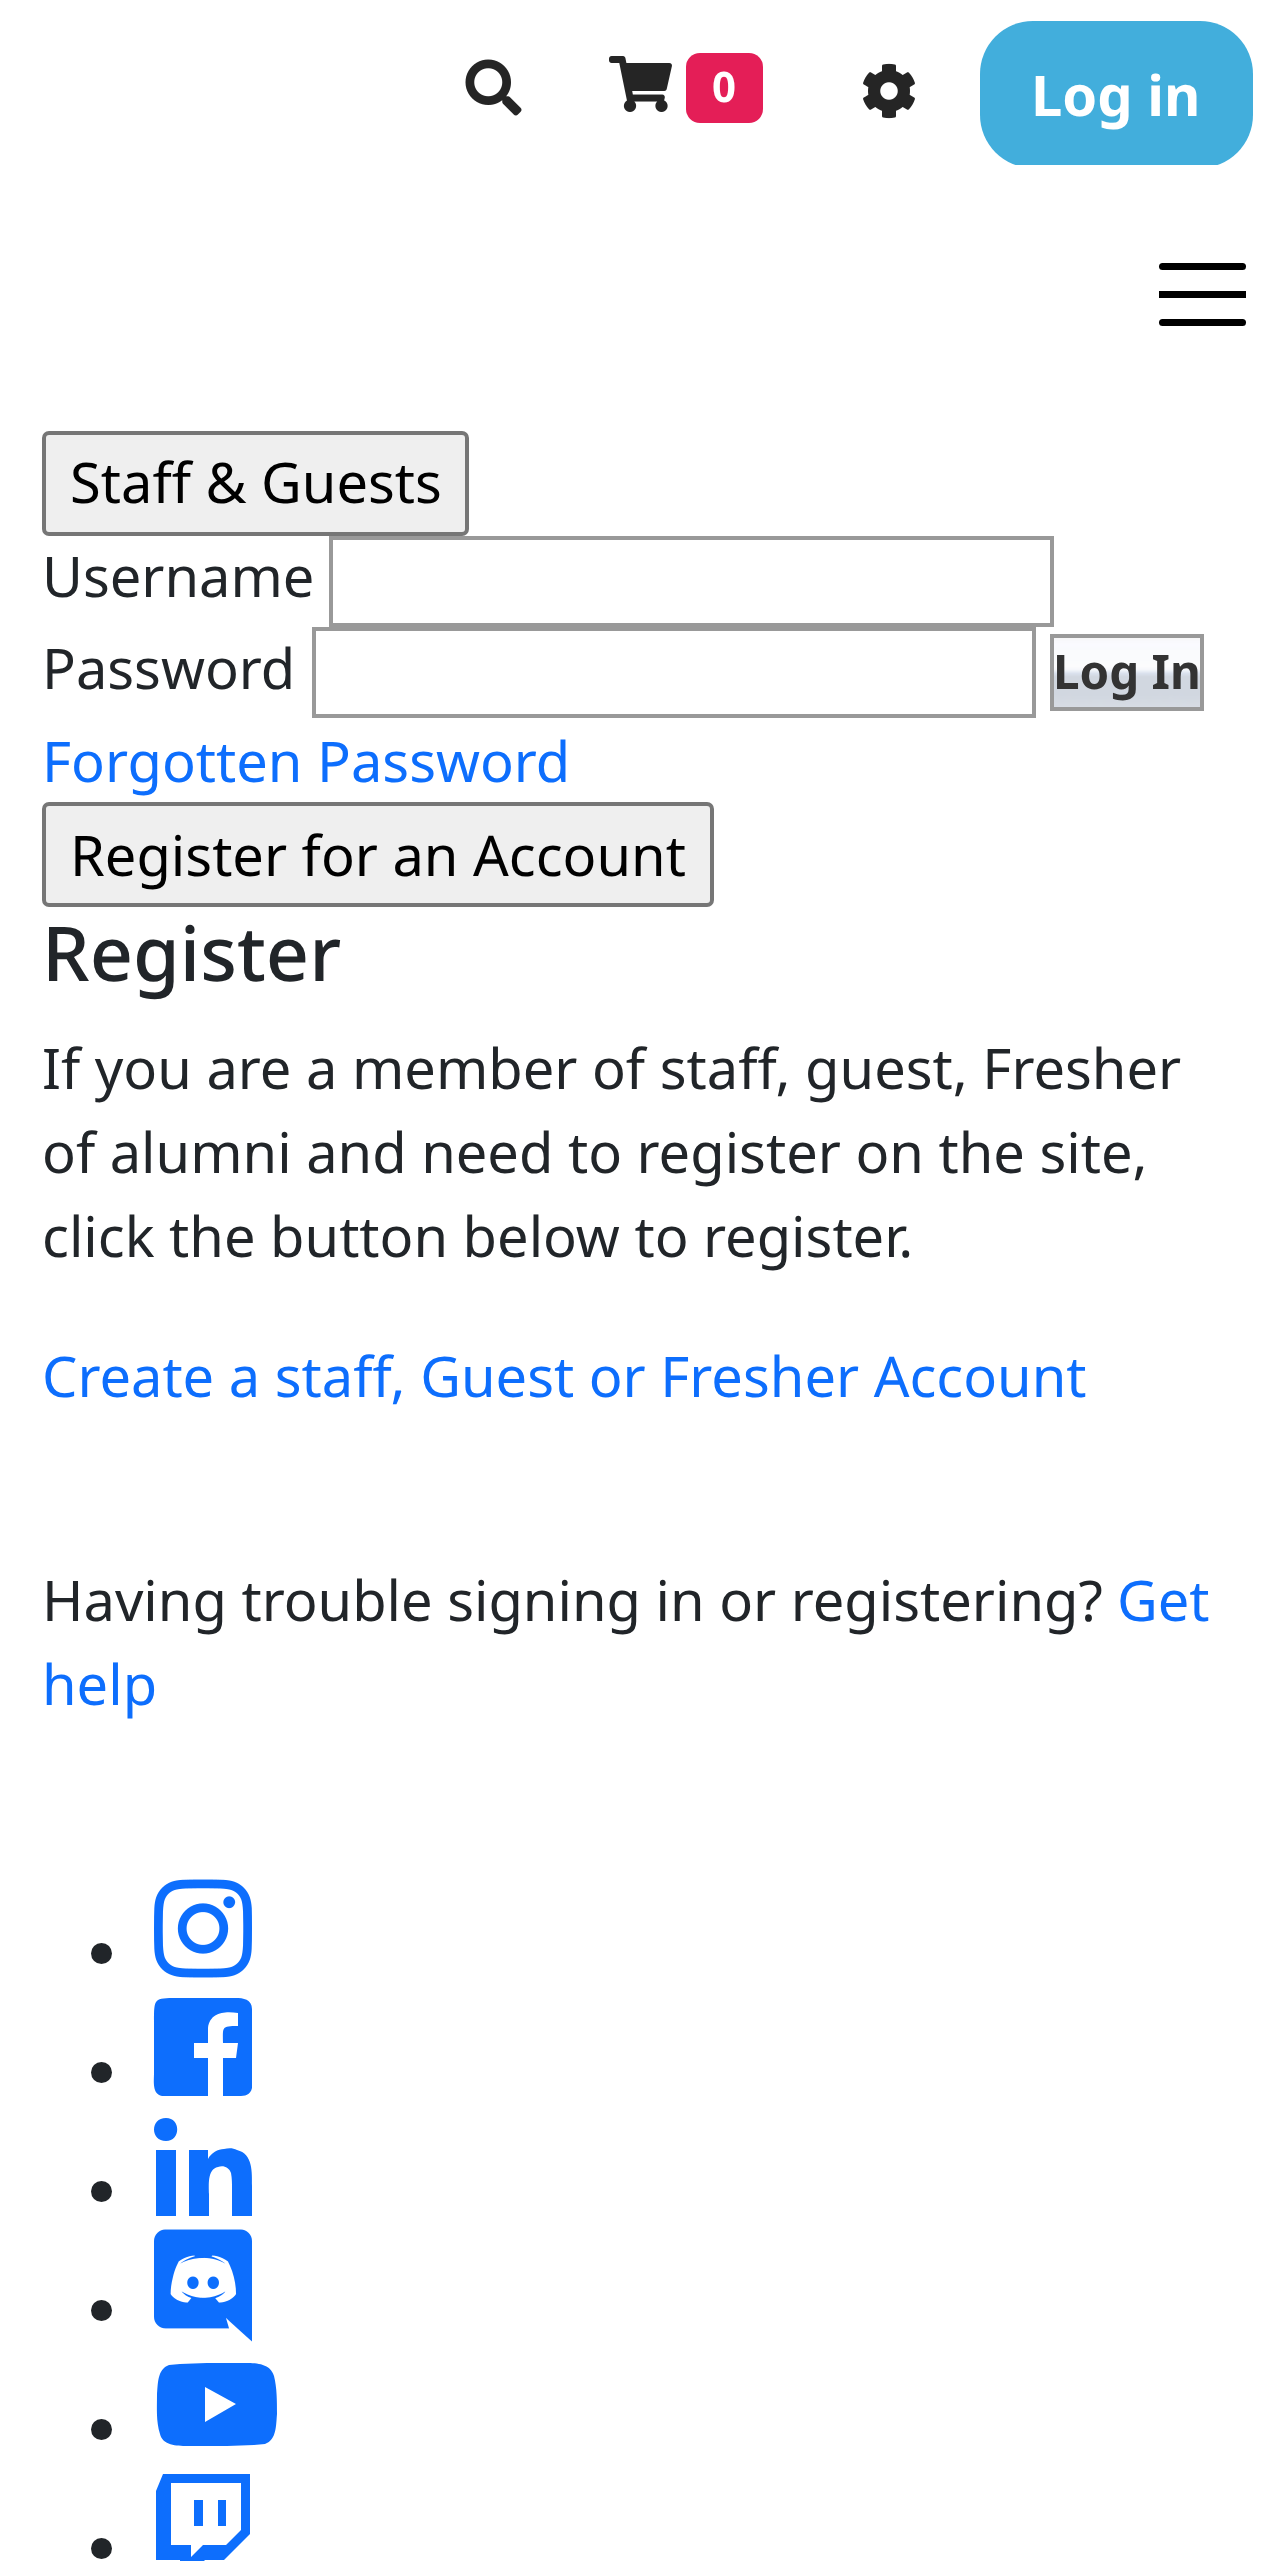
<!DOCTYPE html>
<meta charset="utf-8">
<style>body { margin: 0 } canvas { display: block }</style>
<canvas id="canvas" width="1285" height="2561"></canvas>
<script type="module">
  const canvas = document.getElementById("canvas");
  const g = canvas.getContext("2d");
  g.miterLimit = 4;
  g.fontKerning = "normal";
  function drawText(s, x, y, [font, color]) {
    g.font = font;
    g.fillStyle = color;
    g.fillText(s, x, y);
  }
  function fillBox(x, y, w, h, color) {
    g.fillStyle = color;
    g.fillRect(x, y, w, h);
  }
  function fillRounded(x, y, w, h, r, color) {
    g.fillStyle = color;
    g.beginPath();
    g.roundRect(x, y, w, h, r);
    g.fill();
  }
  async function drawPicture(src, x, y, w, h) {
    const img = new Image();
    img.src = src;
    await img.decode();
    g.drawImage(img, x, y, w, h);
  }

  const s1 = ["bold 42px Noto Sans", "#FFFFFF"];
  const s2 = ["bold 56px Noto Sans", "#FFFFFF"];
  const s3 = ["56px Noto Sans", "#000000"];
  const s4 = ["56px Noto Sans", "#212529"];
  const s5 = ["bold 47.5px Noto Sans", "#333333"];
  const s6 = ["56px Noto Sans", "#0D6EFD"];
  const s7 = ["500 75.5px Noto Sans", "#212529"];

  fillBox(0, 0, 1285, 2561, "#FFFFFF");
  await drawPicture("pic1.png", 465, 59, 57, 57);
  await drawPicture("pic2.png", 609, 56, 63, 56);
  fillRounded(686, 53, 77, 70, 14, "#E41E57");
  drawText("0", 712, 102, s1);
  await drawPicture("pic3.png", 863, 63, 52, 56);
  fillRounded(980, 21, 273, 147, 53, "#42AEDC");
  drawText("Log in", 1031, 116, s2);
  fillBox(1015, 165, 203, 3, "#FFFFFF");
  fillBox(1159, 291, 87, 7, "#000000");
  fillRounded(1159, 263, 87, 7, 3.5, "#000000");
  fillRounded(1159, 319, 87, 7, 3.5, "#000000");
  g.fillStyle = "#EFEFEF";
  g.beginPath();
  g.roundRect(44, 433, 423, 101, 5);
  g.fill();
  g.strokeStyle = "#767676";
  g.lineWidth = 4;
  g.stroke();
  drawText("Staff & Guests", 70, 503, s3);
  drawText("Username", 42, 597, s4);
  g.strokeStyle = "#999999";
  g.strokeRect(331, 538, 721, 87);
  drawText("Password", 42, 689, s4);
  g.strokeRect(314, 629, 720, 87);
  await drawPicture("pic4.png", 1054, 638, 146, 69);
  g.strokeRect(1052, 636, 150, 73);
  drawText("Log In", 1053, 689, s5);
  drawText("Forgotten Password", 42, 782, s6);
  g.fillStyle = "#EFEFEF";
  g.beginPath();
  g.roundRect(44, 804, 668, 101, 5);
  g.fill();
  g.strokeStyle = "#767676";
  g.stroke();
  drawText("Register for an Account", 70, 876, s3);
  drawText("Register", 42, 981, s7);
  drawText("If you are a member of staff, guest, Fresher", 42, 1089, s4);
  drawText("of alumni and need to register on the site,", 42, 1173, s4);
  drawText("click the button below to register.", 42, 1257, s4);
  drawText("Create a staff, Guest or Fresher Account", 42, 1397, s6);
  drawText("Having trouble signing in or registering?", 42, 1621, s4);
  drawText("Get", 1117, 1621, s6);
  drawText("help", 42, 1705, s6);
  g.fillStyle = "#212529";
  g.beginPath();
  g.arc(101.5, 1953.5, 10.5, 0, Math.PI * 2);
  g.fill();
  await drawPicture("pic5.png", 154, 1879, 98, 99);
  g.beginPath();
  g.arc(101.5, 2072.5, 10.5, 0, Math.PI * 2);
  g.fill();
  g.fillStyle = "#0D6EFD";
  g.beginPath();
  g.moveTo(252, 2009);
  g.lineTo(252, 2088);
  g.bezierCurveTo(250, 2097, 242, 2096, 235, 2096);
  g.lineTo(223, 2096);
  g.lineTo(223, 2058);
  g.lineTo(236, 2058);
  g.lineTo(238, 2043);
  g.lineTo(223, 2043);
  g.bezierCurveTo(223, 2027, 221, 2026, 238, 2026);
  g.lineTo(238, 2013);
  g.bezierCurveTo(225, 2011, 210, 2012, 208, 2028);
  g.lineTo(208, 2043);
  g.lineTo(194, 2043);
  g.lineTo(194, 2058);
  g.lineTo(208, 2058);
  g.lineTo(208, 2096);
  g.lineTo(162, 2096);
  g.bezierCurveTo(152, 2094, 154, 2081, 154, 2073);
  g.lineTo(154, 2022);
  g.bezierCurveTo(154, 1998, 154, 1998, 177, 1998);
  g.lineTo(229, 1998);
  g.bezierCurveTo(237, 1998, 252, 1996, 252, 2009);
  g.closePath();
  g.fill();
  g.fillStyle = "#212529";
  g.beginPath();
  g.arc(101.5, 2191.5, 10.5, 0, Math.PI * 2);
  g.fill();
  g.fillStyle = "#0D6EFD";
  g.beginPath();
  g.moveTo(176, 2216);
  g.lineTo(156, 2216);
  g.lineTo(156, 2150);
  g.lineTo(176, 2150);
  g.closePath();
  g.moveTo(166, 2141);
  g.bezierCurveTo(150, 2141, 150, 2118, 166, 2118);
  g.bezierCurveTo(181, 2118, 181, 2141, 166, 2141);
  g.closePath();
  g.moveTo(252, 2216);
  g.lineTo(232, 2216);
  g.lineTo(232, 2189);
  g.bezierCurveTo(232, 2184, 232, 2178, 231, 2173);
  g.bezierCurveTo(229, 2167, 223, 2165, 218, 2167);
  g.bezierCurveTo(207, 2169, 209, 2186, 209, 2194);
  g.lineTo(209, 2216);
  g.lineTo(189, 2216);
  g.lineTo(189, 2150);
  g.lineTo(208, 2150);
  g.lineTo(208, 2159);
  g.bezierCurveTo(211, 2153, 218, 2149, 224, 2149);
  g.bezierCurveTo(229, 2148, 233, 2148, 237, 2150);
  g.bezierCurveTo(253, 2154, 252, 2172, 252, 2186);
  g.closePath();
  g.fill();
  g.fillStyle = "#212529";
  g.beginPath();
  g.arc(101.5, 2310.5, 10.5, 0, Math.PI * 2);
  g.fill();
  await drawPicture("pic6.png", 154, 2229, 98, 113);
  g.beginPath();
  g.arc(101.5, 2429.5, 10.5, 0, Math.PI * 2);
  g.fill();
  g.fillStyle = "#0D6EFD";
  g.beginPath();
  g.moveTo(274, 2376);
  g.bezierCurveTo(270, 2362, 253, 2363, 242, 2363);
  g.lineTo(207, 2363);
  g.lineTo(180, 2364);
  g.lineTo(169, 2365);
  g.bezierCurveTo(157, 2369, 158, 2385, 157, 2395);
  g.bezierCurveTo(157, 2408, 156, 2421, 160, 2434);
  g.bezierCurveTo(163, 2447, 181, 2446, 192, 2446);
  g.lineTo(227, 2446);
  g.lineTo(254, 2445);
  g.lineTo(265, 2444);
  g.bezierCurveTo(277, 2440, 276, 2424, 277, 2414);
  g.bezierCurveTo(277, 2401, 277, 2388, 274, 2376);
  g.closePath();
  g.moveTo(205, 2422);
  g.lineTo(205, 2387);
  g.lineTo(236, 2404);
  g.closePath();
  g.fill();
  g.fillStyle = "#212529";
  g.beginPath();
  g.arc(101.5, 2548.5, 10.5, 0, Math.PI * 2);
  g.fill();
  g.fillStyle = "#0D6EFD";
  g.beginPath();
  g.moveTo(163, 2474);
  g.lineTo(156, 2491);
  g.lineTo(156, 2560);
  g.lineTo(180, 2560);
  g.lineTo(180, 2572);
  g.lineTo(193, 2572);
  g.lineTo(205, 2560);
  g.lineTo(224, 2560);
  g.lineTo(250, 2534);
  g.lineTo(250, 2474);
  g.closePath();
  g.moveTo(241, 2530);
  g.lineTo(226, 2545);
  g.lineTo(203, 2545);
  g.lineTo(191, 2557);
  g.lineTo(191, 2545);
  g.lineTo(171, 2545);
  g.lineTo(171, 2483);
  g.lineTo(241, 2483);
  g.closePath();
  g.moveTo(226, 2500);
  g.lineTo(226, 2526);
  g.lineTo(218, 2526);
  g.lineTo(218, 2500);
  g.closePath();
  g.moveTo(203, 2500);
  g.lineTo(203, 2526);
  g.lineTo(194, 2526);
  g.lineTo(194, 2500);
  g.closePath();
  g.fill();
</script>
